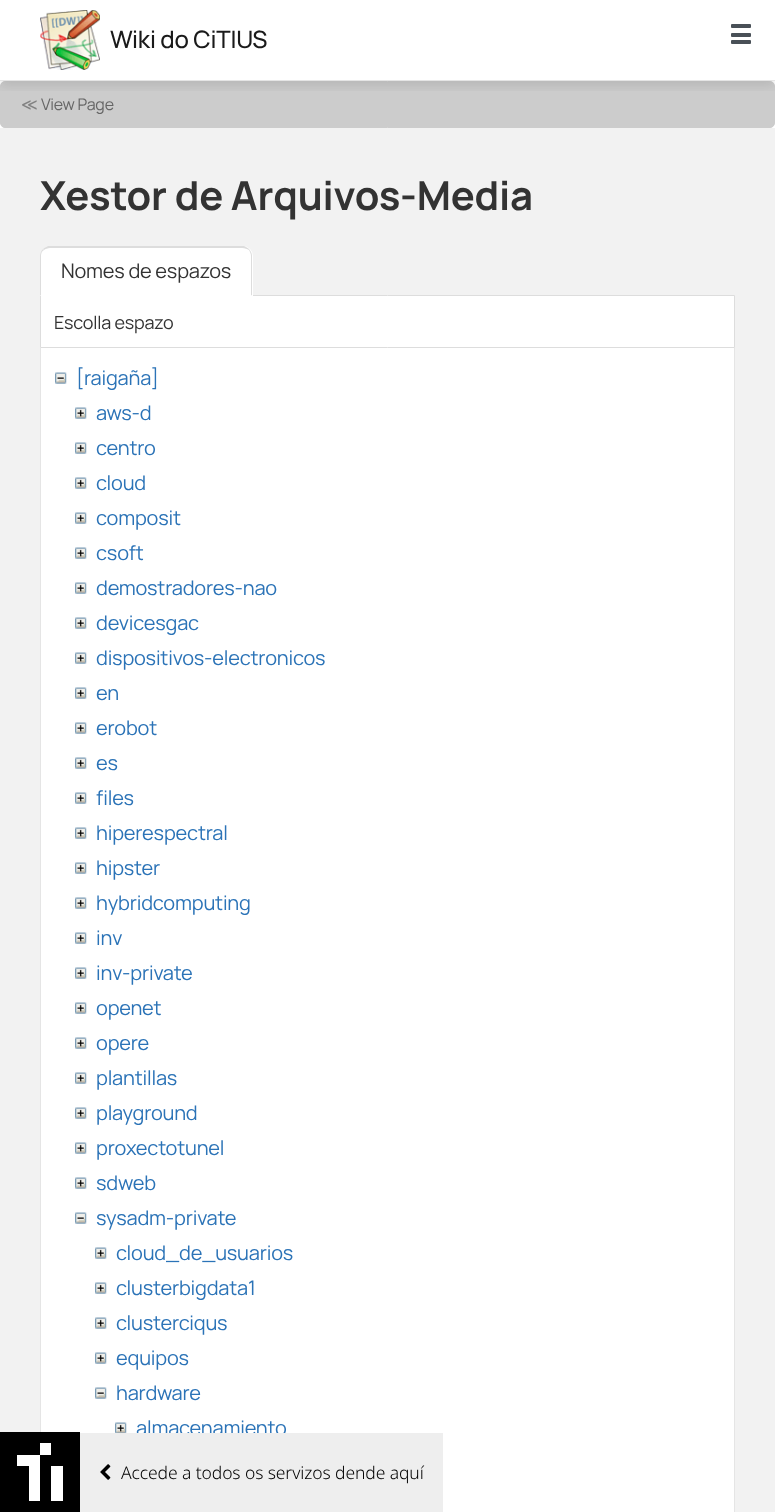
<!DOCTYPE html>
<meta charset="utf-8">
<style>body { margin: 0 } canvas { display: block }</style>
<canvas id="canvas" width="775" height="1512"></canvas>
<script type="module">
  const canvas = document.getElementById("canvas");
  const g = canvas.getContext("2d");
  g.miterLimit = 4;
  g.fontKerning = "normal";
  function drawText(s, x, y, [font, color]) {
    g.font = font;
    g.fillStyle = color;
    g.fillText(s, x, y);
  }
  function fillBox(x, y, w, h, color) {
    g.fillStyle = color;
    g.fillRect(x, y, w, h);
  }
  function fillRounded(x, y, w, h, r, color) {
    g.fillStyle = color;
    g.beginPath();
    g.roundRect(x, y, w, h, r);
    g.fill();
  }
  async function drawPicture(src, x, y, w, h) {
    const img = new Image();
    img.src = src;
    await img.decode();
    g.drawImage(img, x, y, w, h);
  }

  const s1 = ["500 24px Manrope", "#1A1A1A"];
  const s2 = ["16px DejaVu Sans", "#808080"];
  const s3 = ["16px Manrope", "#666666"];
  const s4 = ["bold 40px Manrope", "#333333"];
  const s5 = ["20px Manrope", "#333333"];
  const s6 = ["18px Manrope", "#333333"];
  const s7 = ["20px Manrope", "#2B73B7"];
  const s8 = ["300 17.5px Noto Sans", "#000000"];

  fillBox(0, 0, 775, 1512, "#FFFFFF");
  g.fillStyle = "#CCCCCC";
  g.beginPath();
  g.roundRect(0.5, 81.5, 774, 46, 4.5);
  g.fill();
  g.strokeStyle = "#CCCCCC";
  g.stroke();
  g.save();
  g.beginPath();
  g.rect(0, 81, 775, 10);
  g.clip();
  g.fillStyle = "rgba(0, 0, 0, 0.1)";
  g.filter = "blur(6px)";
  g.beginPath();
  g.rect(0, 5, 775, 81);
  g.fill();
  g.filter = "none";
  g.restore();
  fillBox(0, 80, 775, 1, "#E5E5E5");
  await drawPicture("pic1.png", 40, 10, 60, 60);
  g.letterSpacing = "-0.2px";
  drawText("Wiki do CiTIUS", 110, 48, s1);
  fillRounded(731, 24, 20, 4, 1, "#495057");
  fillRounded(731, 33, 20, 4, 1, "#495057");
  fillRounded(731, 40, 20, 4, 1, "#495057");
  drawText("≪", 21, 110, s2);
  drawText("View Page", 41, 110, s3);
  fillBox(0, 128, 775, 1384, "#F2F2F2");
  drawText("Xestor de Arquivos-Media", 40, 210, s4);
  g.fillStyle = "#FFFFFF";
  g.beginPath();
  g.rect(40.5, 295.5, 694, 52);
  g.fill();
  g.strokeStyle = "#DDDDDD";
  g.stroke();
  g.beginPath();
  g.roundRect(40, 246, 213, 50, [10, 10, 0, 0]);
  g.fill();
  g.fillStyle = "#DDDDDD";
  g.beginPath();
  g.moveTo(50, 248);
  g.bezierCurveTo(48, 248, 45, 249, 44, 250);
  g.lineTo(43, 249);
  g.bezierCurveTo(44, 248, 46, 247, 48, 246);
  g.lineTo(244, 246);
  g.bezierCurveTo(246, 247, 248, 248, 249, 249);
  g.lineTo(249, 250);
  g.bezierCurveTo(247, 249, 245, 248, 242, 248);
  g.closePath();
  g.fill();
  g.beginPath();
  g.moveTo(249, 249);
  g.bezierCurveTo(251, 251, 252, 254, 252, 256);
  g.lineTo(252, 296);
  g.lineTo(251, 295);
  g.lineTo(251, 256);
  g.bezierCurveTo(251, 254, 250, 252, 249, 250);
  g.closePath();
  g.fill();
  g.fillStyle = "#FFFFFF";
  g.beginPath();
  g.moveTo(252, 296);
  g.lineTo(40, 296);
  g.lineTo(41, 295);
  g.lineTo(251, 295);
  g.closePath();
  g.fill();
  g.fillStyle = "#DDDDDD";
  g.beginPath();
  g.moveTo(40, 256);
  g.lineTo(40, 296);
  g.lineTo(41, 295);
  g.lineTo(41, 256);
  g.bezierCurveTo(41, 253, 42, 251, 44, 250);
  g.lineTo(43, 249);
  g.bezierCurveTo(41, 251, 40, 253, 40, 256);
  g.closePath();
  g.fill();
  drawText("Nomes de espazos", 61, 278, s5);
  drawText("Escolla espazo", 54, 329, s6);
  fillBox(41, 348, 693, 1164, "#FFFFFF");
  fillBox(734, 348, 1, 1164, "#E5E5E5");
  fillBox(40, 348, 1, 1084, "#E5E5E5");
  await drawPicture("pic2.png", 55, 372, 12, 12);
  drawText("[raigaña]", 76, 385, s7);
  await drawPicture("pic3.png", 75, 407, 12, 12);
  drawText("aws-d", 96, 420, s7);
  await drawPicture("pic3.png", 75, 442, 12, 12);
  drawText("centro", 96, 455, s7);
  await drawPicture("pic3.png", 75, 477, 12, 12);
  drawText("cloud", 96, 490, s7);
  await drawPicture("pic4.png", 75, 512, 12, 12);
  drawText("composit", 96, 525, s7);
  await drawPicture("pic3.png", 75, 547, 12, 12);
  drawText("csoft", 96, 560, s7);
  await drawPicture("pic5.png", 75, 582, 12, 12);
  drawText("demostradores-nao", 96, 595, s7);
  await drawPicture("pic3.png", 75, 617, 12, 12);
  drawText("devicesgac", 96, 630, s7);
  await drawPicture("pic3.png", 75, 652, 12, 12);
  drawText("dispositivos-electronicos", 96, 665, s7);
  await drawPicture("pic3.png", 75, 687, 12, 12);
  drawText("en", 96, 700, s7);
  await drawPicture("pic3.png", 75, 722, 12, 12);
  drawText("erobot", 96, 735, s7);
  await drawPicture("pic3.png", 75, 757, 12, 12);
  drawText("es", 96, 770, s7);
  await drawPicture("pic3.png", 75, 792, 12, 12);
  drawText("files", 96, 805, s7);
  await drawPicture("pic3.png", 75, 827, 12, 12);
  drawText("hiperespectral", 96, 840, s7);
  await drawPicture("pic3.png", 75, 862, 12, 12);
  drawText("hipster", 96, 875, s7);
  await drawPicture("pic3.png", 75, 897, 12, 12);
  drawText("hybridcomputing", 96, 910, s7);
  await drawPicture("pic3.png", 75, 932, 12, 12);
  drawText("inv", 96, 945, s7);
  await drawPicture("pic3.png", 75, 967, 12, 12);
  drawText("inv-private", 96, 980, s7);
  await drawPicture("pic3.png", 75, 1002, 12, 12);
  drawText("openet", 96, 1015, s7);
  await drawPicture("pic3.png", 75, 1037, 12, 12);
  drawText("opere", 96, 1050, s7);
  await drawPicture("pic3.png", 75, 1072, 12, 12);
  drawText("plantillas", 96, 1085, s7);
  await drawPicture("pic3.png", 75, 1107, 12, 12);
  drawText("playground", 96, 1120, s7);
  await drawPicture("pic3.png", 75, 1142, 12, 12);
  drawText("proxectotunel", 96, 1155, s7);
  await drawPicture("pic3.png", 75, 1177, 12, 12);
  drawText("sdweb", 96, 1190, s7);
  await drawPicture("pic2.png", 75, 1212, 12, 12);
  drawText("sysadm-private", 96, 1225, s7);
  await drawPicture("pic3.png", 95, 1247, 12, 12);
  drawText("cloud_de_usuarios", 116, 1260, s7);
  await drawPicture("pic3.png", 95, 1282, 12, 12);
  drawText("clusterbigdata1", 116, 1295, s7);
  await drawPicture("pic3.png", 95, 1317, 12, 12);
  drawText("clusterciqus", 116, 1330, s7);
  await drawPicture("pic3.png", 95, 1352, 12, 12);
  drawText("equipos", 116, 1365, s7);
  await drawPicture("pic2.png", 95, 1387, 12, 12);
  drawText("hardware", 116, 1400, s7);
  await drawPicture("pic6.png", 115, 1422, 12, 11);
  drawText("almacenamiento", 136, 1435, s7);
  fillBox(17, 1443, 24, 58, "#FFFFFF");
  g.fillStyle = "#000000";
  g.beginPath();
  g.moveTo(0, 1472);
  g.lineTo(0, 1432);
  g.lineTo(80, 1432);
  g.lineTo(80, 1512);
  g.lineTo(0, 1512);
  g.closePath();
  g.moveTo(40, 1478);
  g.lineTo(40, 1455);
  g.lineTo(51, 1455);
  g.lineTo(51, 1443);
  g.lineTo(40, 1443);
  g.lineTo(40, 1455);
  g.lineTo(17, 1455);
  g.lineTo(17, 1466);
  g.lineTo(29, 1466);
  g.lineTo(29, 1501);
  g.lineTo(40, 1501);
  g.closePath();
  g.moveTo(63, 1483);
  g.lineTo(63, 1466);
  g.lineTo(51, 1466);
  g.lineTo(51, 1501);
  g.lineTo(63, 1501);
  g.closePath();
  g.fill();
  fillBox(80, 1433, 363, 79, "#EEEEEE");
  await drawPicture("pic7.png", 100, 1464, 11, 16);
  g.letterSpacing = "-0.1px";
  drawText("Accede a todos os servizos dende aquí", 121, 1479, s8);
</script>
